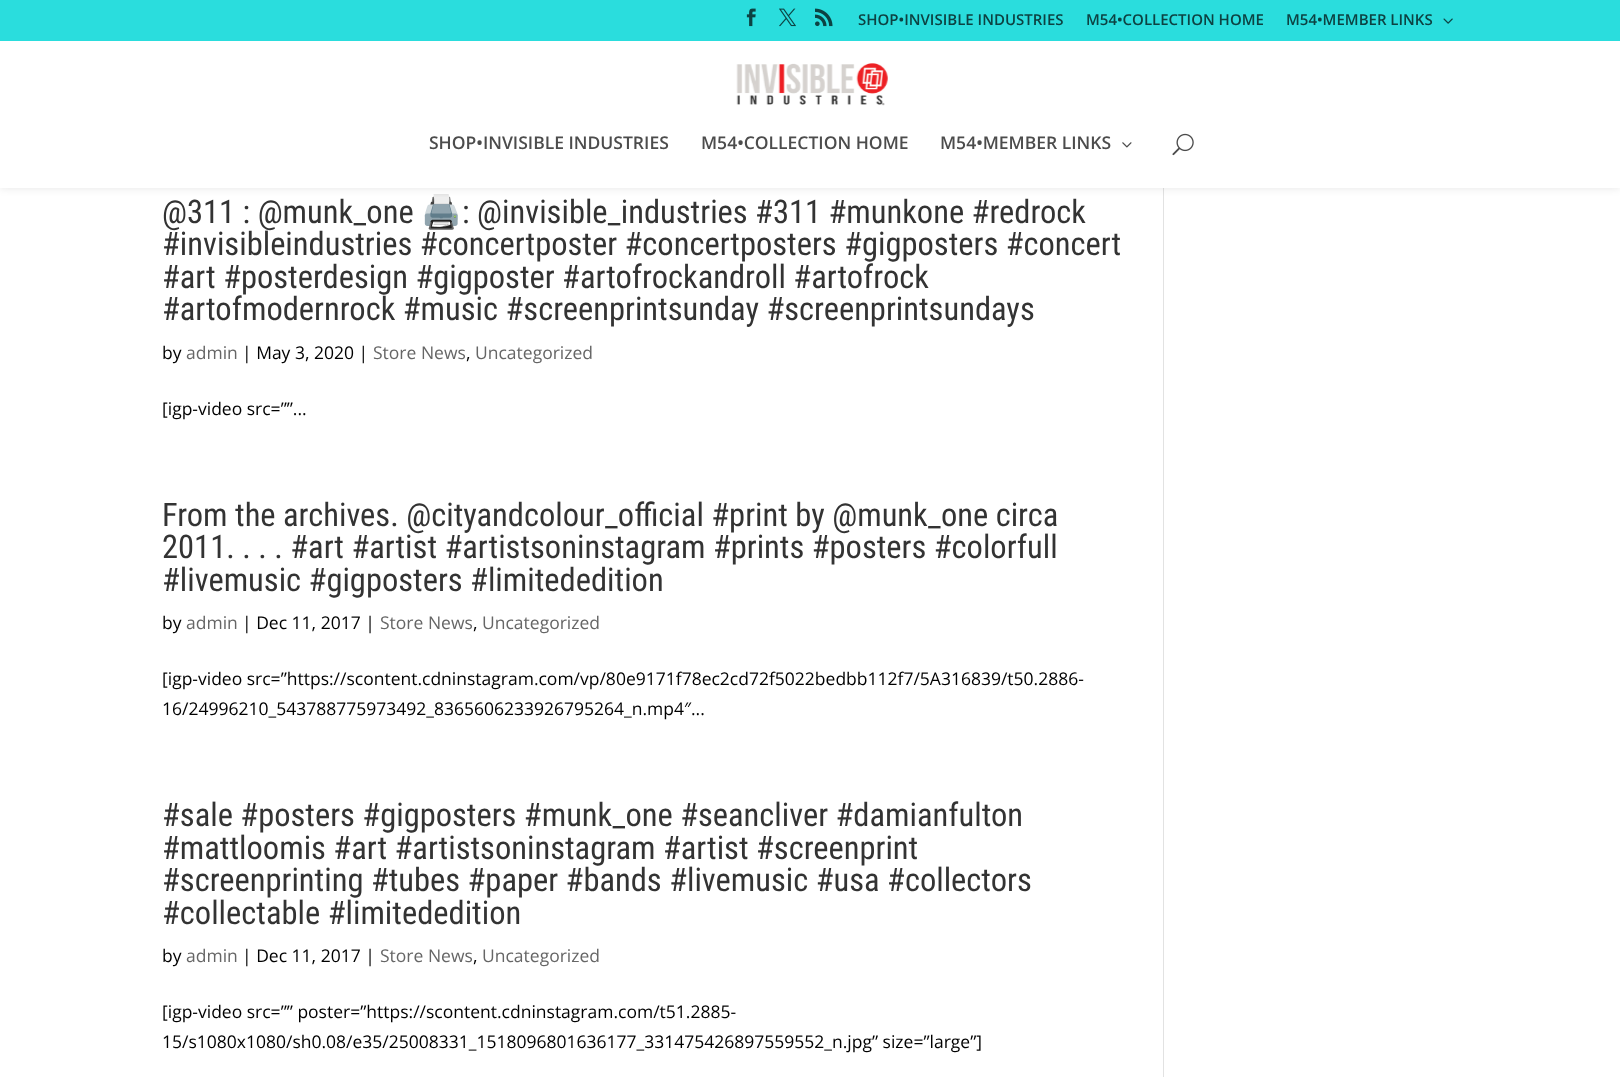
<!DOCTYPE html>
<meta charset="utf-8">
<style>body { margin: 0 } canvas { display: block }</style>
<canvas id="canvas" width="1620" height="1077"></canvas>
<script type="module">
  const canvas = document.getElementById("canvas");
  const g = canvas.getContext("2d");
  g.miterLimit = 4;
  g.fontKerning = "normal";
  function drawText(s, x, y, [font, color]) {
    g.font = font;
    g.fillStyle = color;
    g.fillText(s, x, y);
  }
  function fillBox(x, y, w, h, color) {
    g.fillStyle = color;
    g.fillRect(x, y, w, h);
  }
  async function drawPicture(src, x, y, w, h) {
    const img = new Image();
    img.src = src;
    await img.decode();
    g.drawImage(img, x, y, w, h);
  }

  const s1 = ["600 15px Open Sans", "#0D4242"];
  const s2 = ["600 17.5px Open Sans", "#4C4C4C"];
  const s3 = ["32.5px Roboto Condensed", "#333333"];
  const s4 = ["32.5px Noto Color Emoji", "#333333"];
  const s5 = ["17.5px Open Sans", "#000000"];
  const s6 = ["17.5px Open Sans", "#666666"];

  fillBox(0, 0, 1620, 1077, "#FFFFFF");
  fillBox(1163, 188, 1, 889, "#E2E2E2");
  g.fillStyle = "rgba(0, 0, 0, 0.1)";
  g.filter = "blur(4.5px)";
  g.beginPath();
  g.rect(0, 41, 1620, 147);
  g.fill();
  g.filter = "none";
  fillBox(0, 0, 1620, 41, "#2ADDDD");
  await drawPicture("pic1.png", 746, 8, 10, 19);
  await drawPicture("pic2.png", 779, 8, 17, 19);
  await drawPicture("pic3.png", 815, 8, 18, 19);
  drawText("SHOP•INVISIBLE INDUSTRIES", 858, 25, s1);
  drawText("M54•COLLECTION HOME", 1086, 25, s1);
  drawText("M54•MEMBER LINKS", 1286, 25, s1);
  await drawPicture("pic4.png", 1443, 18, 10, 6);
  fillBox(0, 41, 1620, 147, "#FFFFFF");
  await drawPicture("pic5.png", 736, 63, 152, 43);
  drawText("SHOP•INVISIBLE INDUSTRIES", 429, 149, s2);
  drawText("M54•COLLECTION HOME", 701, 149, s2);
  drawText("M54•MEMBER LINKS", 940, 149, s2);
  await drawPicture("pic6.png", 1122, 142, 10, 6);
  await drawPicture("pic7.png", 1172, 133, 22, 23);
  drawText("@311 ‍: @munk_one", 162, 223, s3);
  drawText("🖨️", 421, 223, s4);
  drawText(": @invisible_industries #311 #munkone #redrock", 462, 223, s3);
  drawText("#invisibleindustries #concertposter #concertposters #gigposters #concert", 162, 255, s3);
  drawText("#art #posterdesign #gigposter #artofrockandroll #artofrock", 162, 288, s3);
  drawText("#artofmodernrock #music #screenprintsunday #screenprintsundays", 162, 320, s3);
  drawText("by", 162, 359, s5);
  drawText("admin", 186, 359, s6);
  drawText("| May 3, 2020 |", 242, 359, s5);
  drawText("Store News", 373, 359, s6);
  drawText(",", 466, 359, s5);
  drawText("Uncategorized", 475, 359, s6);
  drawText("[igp-video src=””...", 162, 415, s5);
  drawText("From the archives. @cityandcolour_official #print by @munk_one circa", 162, 526, s3);
  drawText("2011. . . . #art #artist #artistsoninstagram #prints #posters #colorfull", 162, 558, s3);
  drawText("#livemusic #gigposters #limitededition", 162, 591, s3);
  drawText("by", 162, 629, s5);
  drawText("admin", 186, 629, s6);
  drawText("| Dec 11, 2017 |", 242, 629, s5);
  drawText("Store News", 380, 629, s6);
  drawText(",", 473, 629, s5);
  drawText("Uncategorized", 482, 629, s6);
  drawText("[igp-video src=”https://scontent.cdninstagram.com/vp/80e9171f78ec2cd72f5022bedbb112f7/5A316839/t50.2886-", 162, 685, s5);
  drawText("16/24996210_543788775973492_8365606233926795264_n.mp4″...", 162, 715, s5);
  drawText("#sale #posters #gigposters #munk_one #seancliver #damianfulton", 162, 826, s3);
  drawText("#mattloomis #art #artistsoninstagram #artist #screenprint", 162, 859, s3);
  drawText("#screenprinting #tubes #paper #bands #livemusic #usa #collectors", 162, 891, s3);
  drawText("#collectable #limitededition", 162, 924, s3);
  drawText("by", 162, 962, s5);
  drawText("admin", 186, 962, s6);
  drawText("| Dec 11, 2017 |", 242, 962, s5);
  drawText("Store News", 380, 962, s6);
  drawText(",", 473, 962, s5);
  drawText("Uncategorized", 482, 962, s6);
  drawText("[igp-video src=”” poster=”https://scontent.cdninstagram.com/t51.2885-", 162, 1018, s5);
  drawText("15/s1080x1080/sh0.08/e35/25008331_1518096801636177_331475426897559552_n.jpg” size=”large”]", 162, 1048, s5);
</script>
